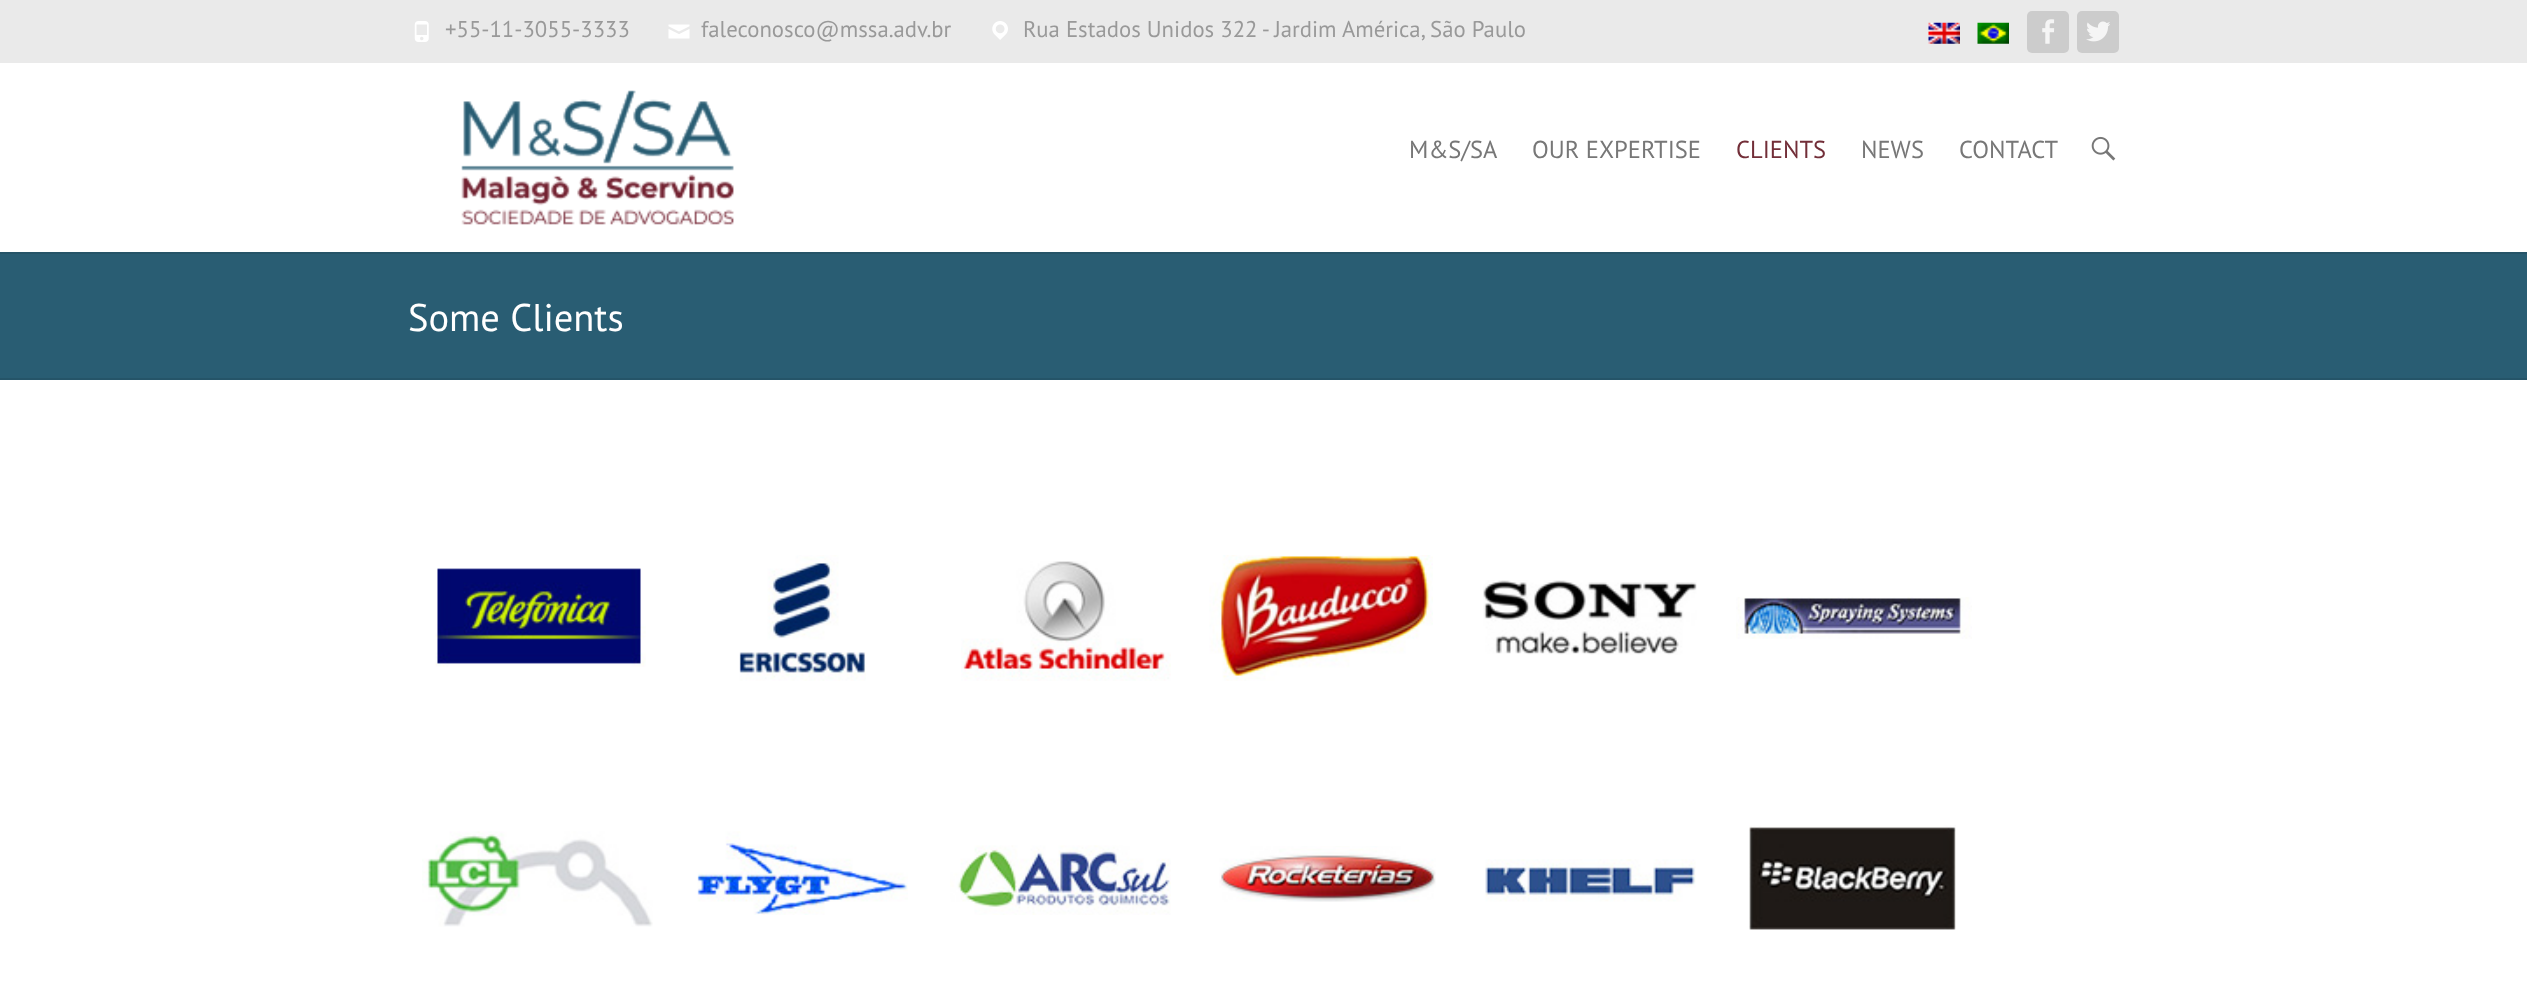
<!DOCTYPE html>
<meta charset="utf-8">
<style>body { margin: 0 } canvas { display: block }</style>
<canvas id="canvas" width="2527" height="1008"></canvas>
<script type="module">
  const canvas = document.getElementById("canvas");
  const g = canvas.getContext("2d");
  g.miterLimit = 4;
  g.fontKerning = "normal";
  function drawText(s, x, y, [font, color]) {
    g.font = font;
    g.fillStyle = color;
    g.fillText(s, x, y);
  }
  function fillBox(x, y, w, h, color) {
    g.fillStyle = color;
    g.fillRect(x, y, w, h);
  }
  function fillRounded(x, y, w, h, r, color) {
    g.fillStyle = color;
    g.beginPath();
    g.roundRect(x, y, w, h, r);
    g.fill();
  }
  async function drawPicture(src, x, y, w, h) {
    const img = new Image();
    img.src = src;
    await img.decode();
    g.drawImage(img, x, y, w, h);
  }

  const s1 = ["22.75px PT Sans", "#999999"];
  const s2 = ["24.5px PT Sans", "#777777"];
  const s3 = ["24.5px PT Sans", "#722E38"];
  const s4 = ["38.5px PT Sans", "#FFFFFF"];

  fillBox(0, 0, 2527, 1008, "#FFFFFF");
  fillBox(0, 0, 2527, 63, "#EAEAEA");
  await drawPicture("pic1.png", 414, 21, 15, 21);
  drawText("+55-11-3055-3333", 445, 37, s1);
  await drawPicture("pic2.png", 668, 24, 22, 15);
  drawText("faleconosco@mssa.adv.br", 701, 37, s1);
  await drawPicture("pic3.png", 992, 21, 16, 19);
  drawText("Rua Estados Unidos 322 - Jardim América, São Paulo", 1023, 37, s1);
  await drawPicture("pic4.png", 1928, 22, 32, 22);
  await drawPicture("pic5.png", 1977, 22, 32, 22);
  fillRounded(2027, 11, 42, 42, 5, "#CCCCCC");
  await drawPicture("pic6.png", 2042, 19, 13, 25);
  fillRounded(2077, 11, 42, 42, 5, "#CCCCCC");
  await drawPicture("pic7.png", 2086, 21, 24, 21);
  await drawPicture("pic8.png", 461, 90, 273, 135);
  drawText("M&S/SA", 1409, 158, s2);
  drawText("OUR EXPERTISE", 1532, 158, s2);
  drawText("CLIENTS", 1736, 158, s3);
  drawText("NEWS", 1861, 158, s2);
  drawText("CONTACT", 1959, 158, s2);
  await drawPicture("pic9.png", 2091, 136, 25, 25);
  fillBox(0, 254, 2527, 124, "#295D73");
  fillBox(0, 252, 2527, 2, "#255468");
  fillBox(0, 378, 2527, 2, "#255468");
  drawText("Some Clients", 408, 331, s4);
  await drawPicture("pic10.png", 435, 568, 211, 99);
  await drawPicture("pic11.png", 739, 555, 127, 126);
  await drawPicture("pic12.png", 961, 561, 210, 120);
  await drawPicture("pic13.png", 1209, 555, 224, 126);
  await drawPicture("pic14.png", 1483, 580, 214, 75);
  await drawPicture("pic15.png", 1736, 597, 236, 42);
  await drawPicture("pic16.png", 422, 831, 231, 96);
  await drawPicture("pic17.png", 697, 831, 211, 84);
  await drawPicture("pic18.png", 950, 845, 221, 70);
  await drawPicture("pic19.png", 1219, 846, 217, 56);
  await drawPicture("pic20.png", 1485, 859, 211, 43);
  await drawPicture("pic21.png", 1749, 825, 207, 105);
</script>
